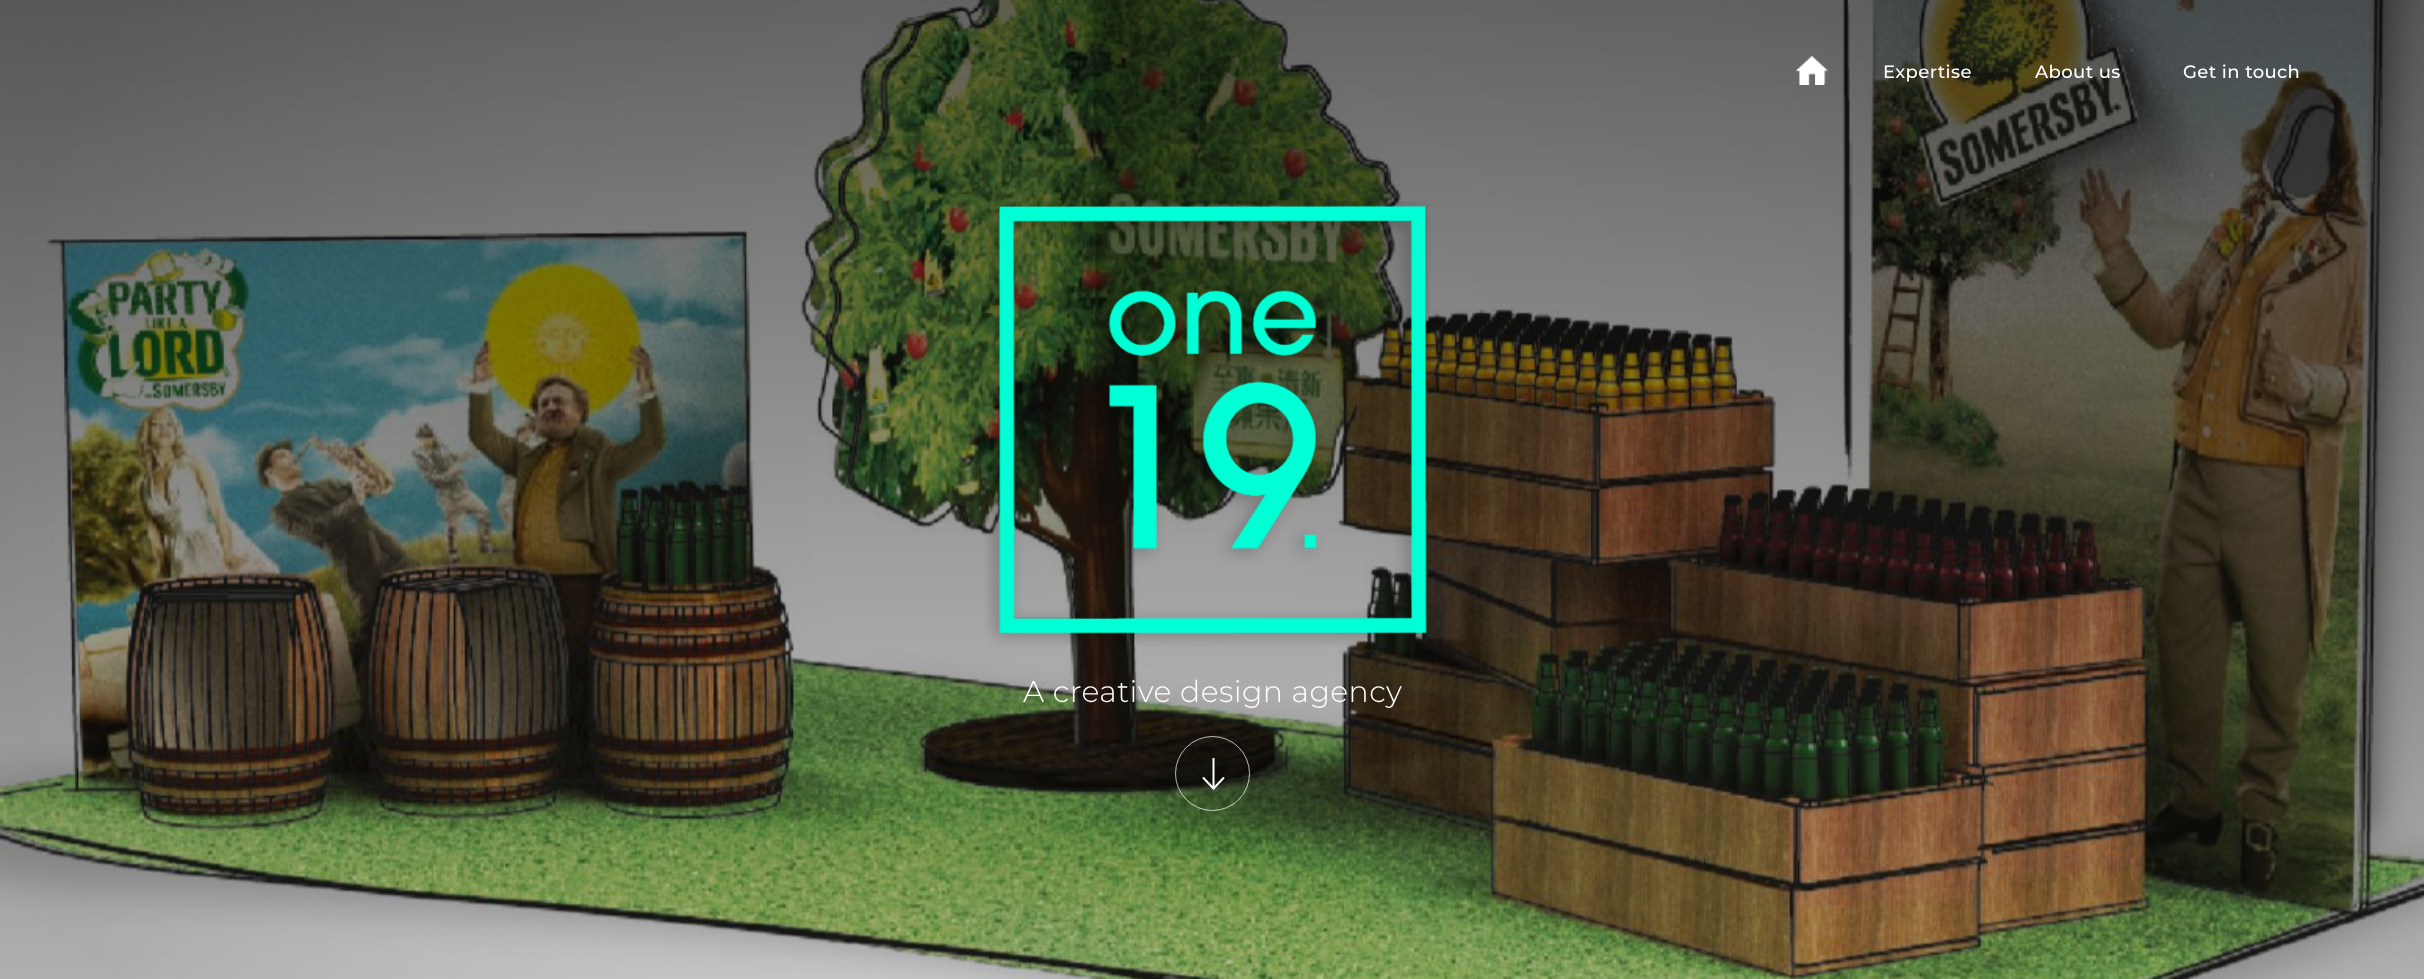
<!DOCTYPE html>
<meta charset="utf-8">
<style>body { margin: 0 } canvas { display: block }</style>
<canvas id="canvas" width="2424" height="979"></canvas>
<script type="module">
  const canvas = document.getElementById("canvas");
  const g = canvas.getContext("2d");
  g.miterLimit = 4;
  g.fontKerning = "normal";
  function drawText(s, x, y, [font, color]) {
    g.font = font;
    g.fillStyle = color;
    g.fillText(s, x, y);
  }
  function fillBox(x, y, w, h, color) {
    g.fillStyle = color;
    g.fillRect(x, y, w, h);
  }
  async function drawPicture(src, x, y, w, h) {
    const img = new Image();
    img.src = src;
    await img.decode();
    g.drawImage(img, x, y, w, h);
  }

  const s1 = ["500 18px Montserrat", "#FFFFFF"];
  const s2 = ["300 30px Montserrat", "#FFFFFF"];

  fillBox(0, 0, 2424, 979, "#FFFFFF");
  await drawPicture("pic2.png", 0, 0, 2424, 979);
  await drawPicture("pic1.png", 1796, 56, 32, 29);
  g.letterSpacing = "0.4px";
  drawText("Expertise", 1883, 78, s1);
  drawText("About us", 2035, 78, s1);
  drawText("Get in touch", 2183, 78, s1);
  await drawPicture("pic3.png", 985, 201, 445, 445);
  drawText("A creative design agency", 1023, 702, s2);
  g.beginPath();
  g.arc(1212.5, 773.5, 37, 0, Math.PI * 2);
  g.strokeStyle = "rgba(255, 255, 255, 0.7)";
  g.stroke();
  g.save();
  g.beginPath();
  g.rect(1196, 758, 33, 32);
  g.clip();
  g.beginPath();
  g.moveTo(1213.5, 758);
  g.lineTo(1213.5, 788.5);
  g.strokeStyle = "#FFFFFF";
  g.lineWidth = 2;
  g.lineCap = "round";
  g.lineJoin = "round";
  g.stroke();
  g.restore();
  g.beginPath();
  g.moveTo(1203.5, 778);
  g.lineTo(1213.5, 788.5);
  g.lineTo(1223.5, 778);
  g.strokeStyle = "#FFFFFF";
  g.lineWidth = 2;
  g.lineCap = "round";
  g.lineJoin = "round";
  g.stroke();
</script>
